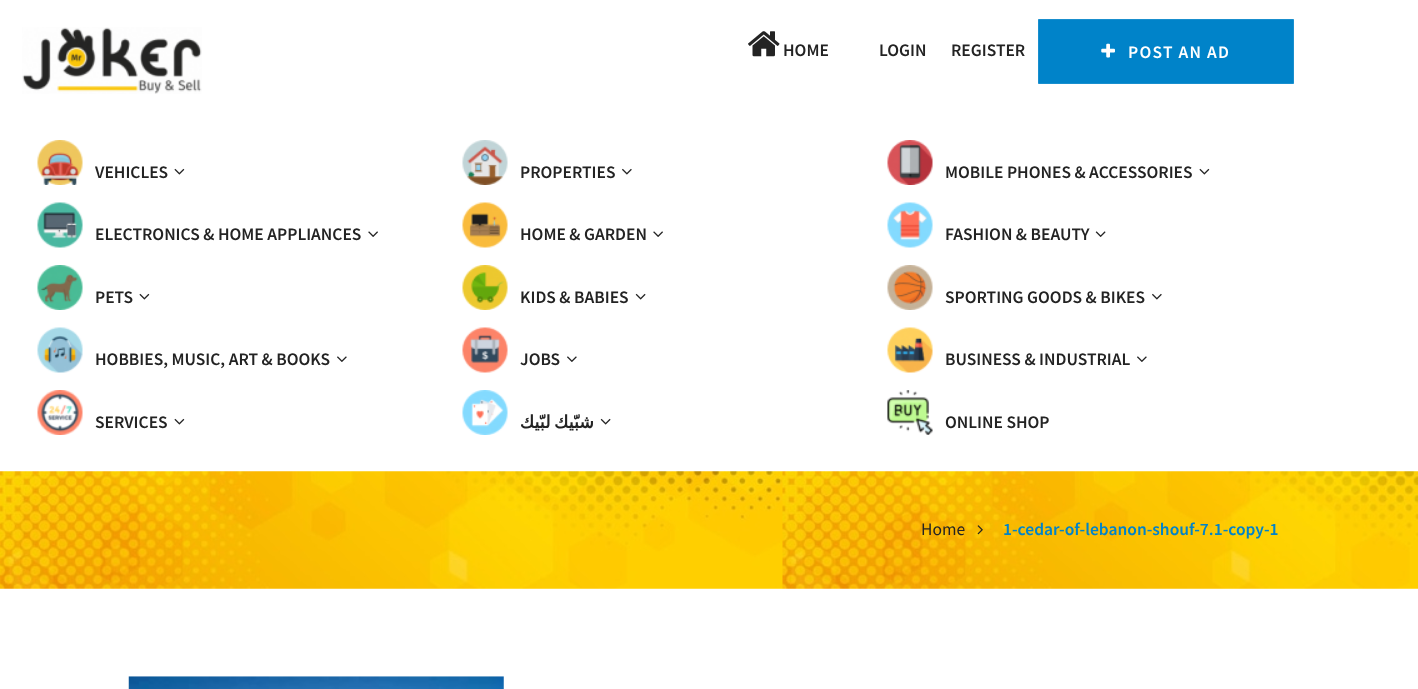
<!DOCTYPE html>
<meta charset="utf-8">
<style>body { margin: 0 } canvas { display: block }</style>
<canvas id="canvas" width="1418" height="689"></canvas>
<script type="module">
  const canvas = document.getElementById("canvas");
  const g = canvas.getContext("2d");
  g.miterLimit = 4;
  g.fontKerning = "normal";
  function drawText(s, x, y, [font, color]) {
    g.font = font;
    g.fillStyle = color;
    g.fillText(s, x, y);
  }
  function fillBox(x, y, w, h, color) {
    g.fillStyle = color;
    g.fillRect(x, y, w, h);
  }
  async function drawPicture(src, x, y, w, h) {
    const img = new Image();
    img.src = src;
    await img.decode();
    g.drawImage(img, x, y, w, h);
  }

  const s1 = ["600 17.5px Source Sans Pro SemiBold", "#232323"];
  const s2 = ["600 17.5px Source Sans Pro SemiBold", "#FFFFFF"];
  const s3 = ["bold 17.5px DejaVu Sans", "#232323"];
  const s4 = ["17.5px Source Sans Pro", "#232323"];
  const s5 = ["600 17.5px Source Sans Pro SemiBold", "#0083C9"];

  fillBox(0, 0, 1418, 689, "#FFFFFF");
  await drawPicture("pic1.png", 22, 27, 180, 67);
  await drawPicture("pic2.png", 748, 31, 32, 26);
  drawText("HOME", 783, 56, s1);
  drawText("LOGIN", 879, 56, s1);
  drawText("REGISTER", 951, 56, s1);
  g.fillStyle = "#0083C9";
  g.beginPath();
  g.rect(1038.5, 19.5, 255, 64);
  g.fill();
  g.strokeStyle = "#198FCE";
  g.stroke();
  await drawPicture("pic3.png", 1101, 43, 14, 15);
  g.letterSpacing = "1.25px";
  drawText("POST AN AD", 1128, 58, s2);
  await drawPicture("pic4.png", 37, 140, 46, 45);
  g.letterSpacing = "0px";
  drawText("VEHICLES", 95, 178, s1);
  await drawPicture("pic5.png", 174, 168, 11, 7);
  await drawPicture("pic6.png", 462, 140, 46, 45);
  drawText("PROPERTIES", 520, 178, s1);
  await drawPicture("pic7.png", 622, 168, 10, 7);
  await drawPicture("pic8.png", 887, 140, 46, 45);
  drawText("MOBILE PHONES & ACCESSORIES", 945, 178, s1);
  await drawPicture("pic5.png", 1199, 168, 11, 7);
  await drawPicture("pic9.png", 37, 202, 46, 46);
  drawText("ELECTRONICS & HOME APPLIANCES", 95, 240, s1);
  await drawPicture("pic10.png", 368, 231, 10, 6);
  await drawPicture("pic11.png", 462, 202, 46, 46);
  drawText("HOME & GARDEN", 520, 240, s1);
  await drawPicture("pic10.png", 653, 231, 10, 6);
  await drawPicture("pic12.png", 887, 202, 46, 46);
  drawText("FASHION & BEAUTY", 945, 240, s1);
  await drawPicture("pic13.png", 1095, 231, 11, 6);
  await drawPicture("pic14.png", 37, 265, 46, 45);
  drawText("PETS", 95, 303, s1);
  await drawPicture("pic5.png", 139, 293, 11, 7);
  await drawPicture("pic15.png", 462, 265, 46, 45);
  drawText("KIDS & BABIES", 520, 303, s1);
  await drawPicture("pic16.png", 635, 293, 11, 7);
  await drawPicture("pic17.png", 887, 265, 46, 45);
  drawText("SPORTING GOODS & BIKES", 945, 303, s1);
  await drawPicture("pic7.png", 1152, 293, 10, 7);
  await drawPicture("pic18.png", 37, 327, 46, 46);
  drawText("HOBBIES, MUSIC, ART & BOOKS", 95, 365, s1);
  await drawPicture("pic19.png", 337, 356, 10, 6);
  await drawPicture("pic20.png", 462, 327, 46, 46);
  drawText("JOBS", 520, 365, s1);
  await drawPicture("pic19.png", 567, 356, 10, 6);
  await drawPicture("pic21.png", 887, 327, 46, 46);
  drawText("BUSINESS & INDUSTRIAL", 945, 365, s1);
  await drawPicture("pic19.png", 1137, 356, 10, 6);
  await drawPicture("pic22.png", 37, 390, 46, 45);
  drawText("SERVICES", 95, 428, s1);
  await drawPicture("pic5.png", 174, 418, 11, 7);
  await drawPicture("pic23.png", 462, 390, 46, 45);
  g.wordSpacing = "-2px";
  g.direction = "rtl";
  drawText("شبّيك لبّيك", 594, 428, s3);
  await drawPicture("pic16.png", 600, 418, 11, 7);
  await drawPicture("pic24.png", 887, 390, 46, 45);
  g.wordSpacing = "0px";
  g.direction = "ltr";
  drawText("ONLINE SHOP", 945, 428, s1);
  await drawPicture("pic25.png", 0, 471, 1418, 118);
  drawText("Home", 921, 535, s4);
  await drawPicture("pic26.png", 977, 525, 6, 10);
  drawText("1-cedar-of-lebanon-shouf-7.1-copy-1", 1003, 535, s5);
  await drawPicture("pic27.png", 128, 676, 376, 13);
</script>
